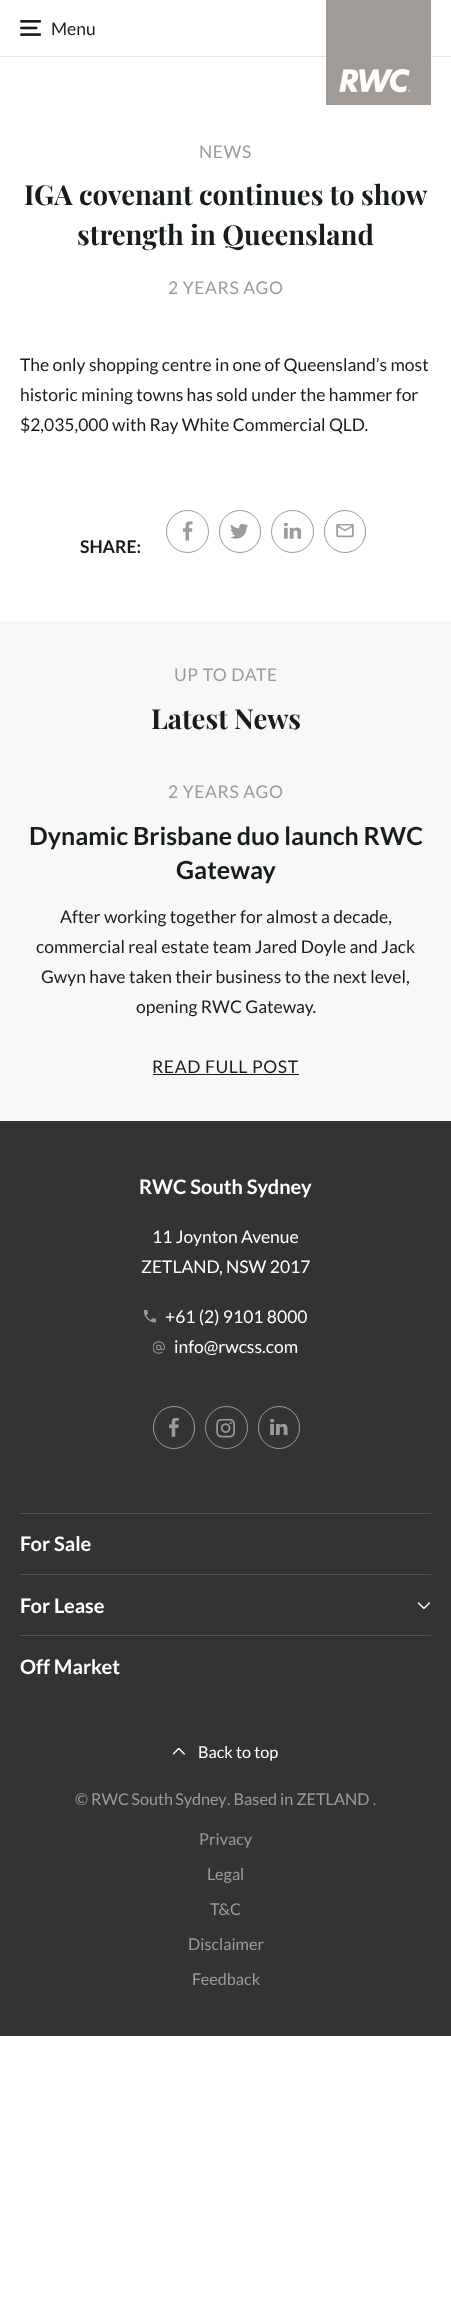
<!DOCTYPE html>
<meta charset="utf-8">
<style>body { margin: 0 } canvas { display: block }</style>
<canvas id="canvas" width="451" height="2313"></canvas>
<script type="module">
  const canvas = document.getElementById("canvas");
  const g = canvas.getContext("2d");
  g.miterLimit = 4;
  g.fontKerning = "normal";
  function drawText(s, x, y, [font, color]) {
    g.font = font;
    g.fillStyle = color;
    g.fillText(s, x, y);
  }
  function fillBox(x, y, w, h, color) {
    g.fillStyle = color;
    g.fillRect(x, y, w, h);
  }
  async function drawPicture(src, x, y, w, h) {
    const img = new Image();
    img.src = src;
    await img.decode();
    g.drawImage(img, x, y, w, h);
  }

  const s1 = ["17.5px Lato", "#171E1A"];
  const s2 = ["17.5px Lato", "#9B9B9B"];
  const s3 = ["bold 27.5px Playfair Display", "#171E1A"];
  const s4 = ["bold 17.5px Lato", "#171E1A"];
  const s5 = ["bold 25px Lato", "#171E1A"];
  const s6 = ["bold 20px Lato", "#FFFFFF"];
  const s7 = ["17.5px Lato", "#FFFFFF"];
  const s8 = ["16.25px Lato", "#FFFFFF"];
  const s9 = ["16.25px Lato", "#9B9B9B"];

  fillBox(0, 0, 451, 2313, "#FFFFFF");
  fillBox(0, 56, 451, 1, "#E6E6E6");
  await drawPicture("pic1.png", 20, 20, 21, 16);
  drawText("Menu", 51, 35, s1);
  await drawPicture("pic2.png", 326, 0, 105, 105);
  g.letterSpacing = "0.6px";
  drawText("NEWS", 199, 158, s2);
  g.letterSpacing = "0px";
  drawText("IGA covenant continues to show", 24, 205, s3);
  drawText("strength in Queensland", 77, 245, s3);
  g.letterSpacing = "0.6px";
  drawText("2 YEARS AGO", 168, 294, s2);
  g.letterSpacing = "0px";
  drawText("The only shopping centre in one of Queensland’s most", 20, 371, s1);
  drawText("historic mining towns has sold under the hammer for", 20, 401, s1);
  drawText("$2,035,000 with Ray White Commercial QLD.", 20, 431, s1);
  drawText("SHARE:", 80, 553, s4);
  await drawPicture("pic3.png", 183, 521, 10, 20);
  g.beginPath();
  g.arc(187.5, 531.5, 21, 0, Math.PI * 2);
  g.strokeStyle = "#9B9B9B";
  g.stroke();
  await drawPicture("pic4.png", 230, 524, 19, 15);
  g.beginPath();
  g.roundRect(219.5, 510.5, 41, 42, 20.5);
  g.stroke();
  await drawPicture("pic5.png", 284, 523, 17, 16);
  g.beginPath();
  g.arc(292.5, 531.5, 21, 0, Math.PI * 2);
  g.stroke();
  await drawPicture("pic6.png", 336, 524, 18, 14);
  g.beginPath();
  g.roundRect(324.5, 510.5, 41, 42, 20.5);
  g.stroke();
  fillBox(0, 621, 451, 500, "#F8F8F9");
  g.letterSpacing = "0.6px";
  drawText("UP TO DATE", 174, 681, s2);
  g.letterSpacing = "0px";
  drawText("Latest News", 151, 729, s3);
  g.letterSpacing = "0.6px";
  drawText("2 YEARS AGO", 168, 798, s2);
  g.letterSpacing = "0px";
  drawText("Dynamic Brisbane duo launch RWC", 29, 845, s5);
  drawText("Gateway", 176, 879, s5);
  drawText("After working together for almost a decade,", 60, 923, s1);
  drawText("commercial real estate team Jared Doyle and Jack", 36, 953, s1);
  drawText("Gwyn have taken their business to the next level,", 41, 983, s1);
  drawText("opening RWC Gateway.", 136, 1013, s1);
  g.letterSpacing = "0.6px";
  drawText("READ FULL POST", 152, 1073, s1);
  fillBox(153, 1074, 146, 1, "#171E1A");
  fillBox(0, 1121, 451, 915, "#333333");
  g.letterSpacing = "0px";
  drawText("RWC South Sydney", 139, 1194, s6);
  drawText("11 Joynton Avenue", 152, 1243, s7);
  drawText("ZETLAND", 141, 1273, s7);
  drawText(", NSW 2017", 219, 1273, s7);
  await drawPicture("pic7.png", 144, 1310, 12, 13);
  drawText("+61 (2) 9101 8000", 165, 1323, s7);
  await drawPicture("pic8.png", 153, 1341, 12, 13);
  drawText("info@rwcss.com", 174, 1353, s7);
  await drawPicture("pic9.png", 169, 1418, 10, 19);
  g.beginPath();
  g.roundRect(153.5, 1406.5, 41, 42, 20.5);
  g.stroke();
  await drawPicture("pic10.png", 216, 1419, 19, 19);
  g.beginPath();
  g.arc(226.5, 1427.5, 21, 0, Math.PI * 2);
  g.stroke();
  await drawPicture("pic11.png", 270, 1419, 18, 16);
  g.beginPath();
  g.roundRect(258.5, 1406.5, 41, 42, 20.5);
  g.stroke();
  fillBox(20, 1513, 411, 1, "#525252");
  drawText("For Sale", 20, 1551, s6);
  fillBox(20, 1574, 411, 1, "#525252");
  drawText("For Lease", 20, 1613, s6);
  await drawPicture("pic12.png", 418, 1602, 12, 8);
  fillBox(20, 1635, 411, 1, "#525252");
  drawText("Off Market", 20, 1674, s6);
  await drawPicture("pic13.png", 173, 1748, 12, 7);
  drawText("Back to top", 198, 1758, s8);
  drawText("©", 75, 1805, s9);
  g.wordSpacing = "-1px";
  drawText("RWC South Sydney", 91, 1805, s9);
  g.wordSpacing = "0px";
  drawText(". Based in ZETLAND .", 227, 1805, s9);
  drawText("Privacy", 199, 1845, s9);
  drawText("Legal", 207, 1880, s9);
  drawText("T&C", 210, 1915, s9);
  drawText("Disclaimer", 188, 1950, s9);
  drawText("Feedback", 192, 1985, s9);
</script>
